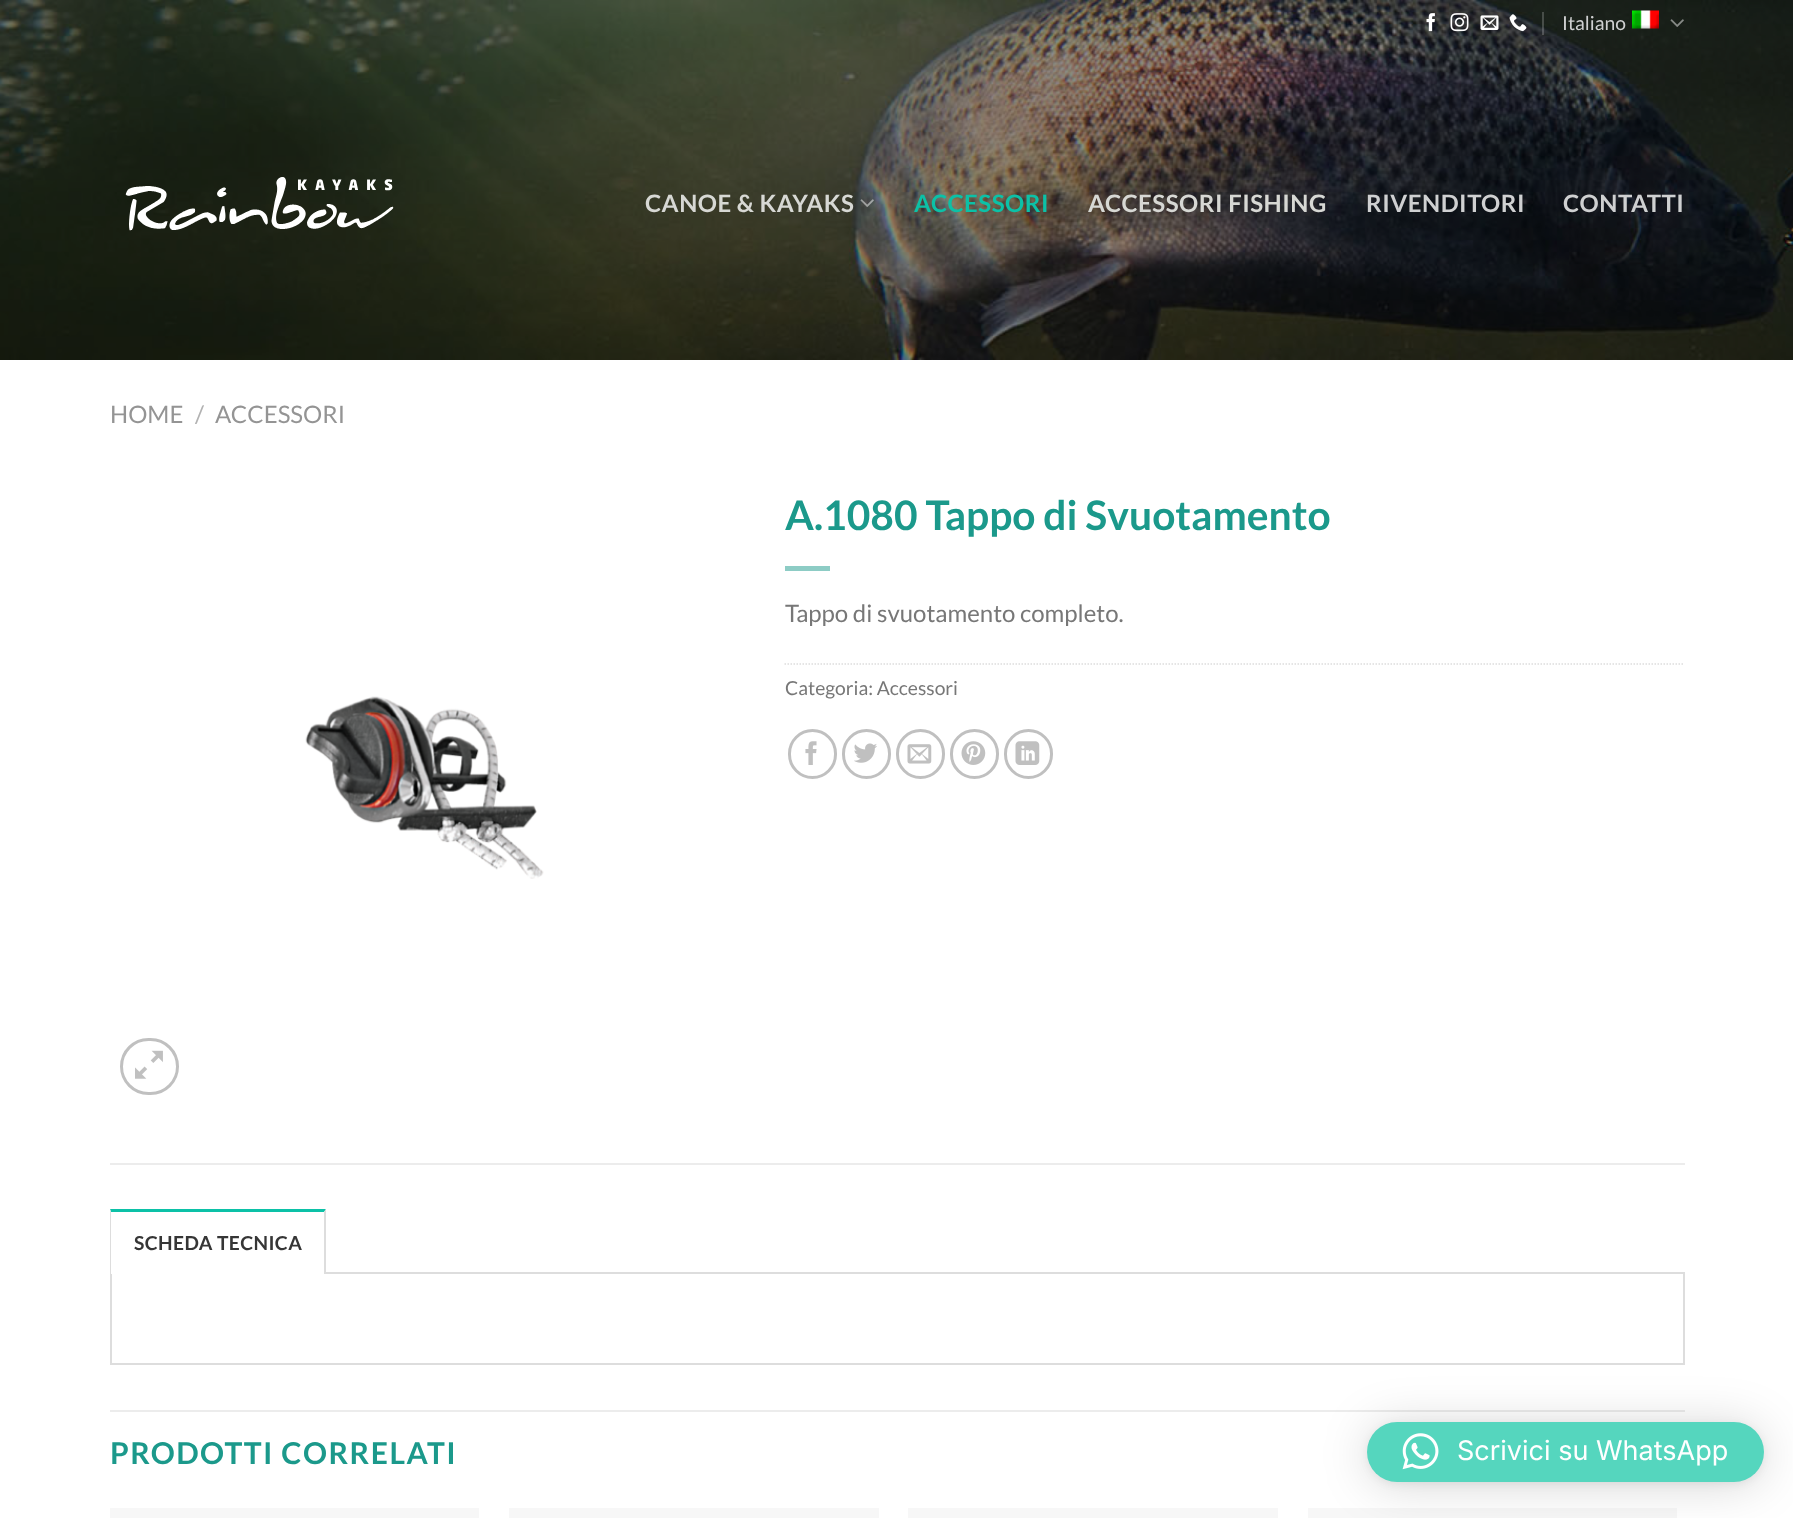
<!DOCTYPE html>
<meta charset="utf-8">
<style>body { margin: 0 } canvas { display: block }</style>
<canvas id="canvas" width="1793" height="1518"></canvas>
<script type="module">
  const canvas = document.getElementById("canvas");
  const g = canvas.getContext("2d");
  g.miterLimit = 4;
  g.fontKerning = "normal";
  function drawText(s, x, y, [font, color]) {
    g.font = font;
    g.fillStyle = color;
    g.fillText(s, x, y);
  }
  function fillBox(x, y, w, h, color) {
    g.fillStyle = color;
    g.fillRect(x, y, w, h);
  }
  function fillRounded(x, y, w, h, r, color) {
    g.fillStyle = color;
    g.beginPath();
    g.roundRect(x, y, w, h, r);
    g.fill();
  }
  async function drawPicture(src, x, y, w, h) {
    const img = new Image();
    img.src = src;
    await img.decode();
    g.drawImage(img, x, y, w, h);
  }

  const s1 = ["19.25px Lato", "#CFD0D1"];
  const s2 = ["bold 24px Lato", "#D7D8D4"];
  const s3 = ["bold 24px Lato", "#0CC1A7"];
  const s4 = ["bold 24px Lato", "#CFD0D1"];
  const s5 = ["24px Lato", "#949494"];
  const s6 = ["24px Lato", "#B2B2B2"];
  const s7 = ["bold 40.75px Lato", "#1B998B"];
  const s8 = ["24px Lato", "#777777"];
  const s9 = ["19.25px Lato", "#777777"];
  const s10 = ["bold 19.25px Lato", "#363636"];
  const s11 = ["bold 30px Lato", "#1B998B"];
  const s12 = ["27px Inter", "#FFFFFF"];

  fillBox(0, 0, 1793, 1518, "#FFFFFF");
  await drawPicture("pic1.png", 0, 0, 1793, 360);
  await drawPicture("pic2.png", 1426, 13, 9, 19);
  await drawPicture("pic3.png", 1450, 13, 19, 19);
  await drawPicture("pic4.png", 1480, 15, 19, 15);
  await drawPicture("pic5.png", 1509, 14, 18, 18);
  fillBox(1542, 12, 2, 23, "rgba(255, 255, 255, 0.2)");
  drawText("Italiano", 1562, 30, s1);
  await drawPicture("pic6.png", 1632, 10, 27, 19);
  await drawPicture("pic7.png", 1670, 19, 14, 8);
  await drawPicture("pic8.png", 125, 177, 269, 54);
  g.letterSpacing = "0.5px";
  drawText("CANOE & KAYAKS", 645, 212, s2);
  await drawPicture("pic9.png", 860, 199, 14, 8);
  drawText("ACCESSORI", 914, 212, s3);
  drawText("ACCESSORI FISHING", 1088, 212, s2);
  drawText("RIVENDITORI", 1366, 212, s4);
  drawText("CONTATTI", 1563, 212, s4);
  g.letterSpacing = "0px";
  drawText("HOME", 110, 423, s5);
  drawText("/", 195, 423, s6);
  drawText("ACCESSORI", 215, 423, s5);
  drawText("A.1080 Tappo di Svuotamento", 785, 530, s7);
  fillBox(785, 566, 45, 5, "#8DCCC5");
  drawText("Tappo di svuotamento completo.", 785, 622, s8);
  g.beginPath();
  g.moveTo(784.5, 664);
  g.lineTo(1684.5, 664);
  g.strokeStyle = "#DDDDDD";
  g.lineWidth = 1.5;
  g.setLineDash([1.5, 1.5]);
  g.stroke();
  drawText("Categoria: Accessori", 785, 695, s9);
  g.beginPath();
  g.roundRect(789.5, 730.5, 46, 47, 23);
  g.strokeStyle = "#C0C0C0";
  g.lineWidth = 3;
  g.setLineDash([]);
  g.stroke();
  await drawPicture("pic10.png", 805, 741, 12, 24);
  g.beginPath();
  g.roundRect(843.5, 730.5, 46, 47, 23);
  g.stroke();
  await drawPicture("pic11.png", 854, 743, 23, 20);
  g.beginPath();
  g.roundRect(897.5, 730.5, 46, 47, 23);
  g.stroke();
  await drawPicture("pic12.png", 907, 744, 25, 20);
  g.beginPath();
  g.roundRect(951.5, 730.5, 46, 47, 23);
  g.stroke();
  await drawPicture("pic13.png", 961, 741, 25, 24);
  g.beginPath();
  g.roundRect(1005.5, 730.5, 46, 47, 23);
  g.stroke();
  await drawPicture("pic14.png", 1015, 741, 25, 24);
  await drawPicture("pic15.png", 305, 696, 239, 183);
  g.beginPath();
  g.roundRect(121.5, 1039.5, 56, 54, 27);
  g.stroke();
  await drawPicture("pic16.png", 135, 1050, 28, 29);
  fillBox(110, 1163, 1575, 2, "#ECECEC");
  g.strokeStyle = "#DDDDDD";
  g.lineWidth = 2;
  g.strokeRect(111, 1273, 1573, 91);
  fillBox(110, 1272, 216, 2, "#FFFFFF");
  g.fillStyle = "#0CC1A7";
  g.beginPath();
  g.moveTo(110, 1209);
  g.lineTo(326, 1209);
  g.lineTo(324, 1212);
  g.lineTo(111, 1212);
  g.closePath();
  g.fill();
  g.fillStyle = "#DDDDDD";
  g.beginPath();
  g.moveTo(326, 1209);
  g.lineTo(326, 1274);
  g.lineTo(324, 1274);
  g.lineTo(324, 1212);
  g.closePath();
  g.fill();
  g.beginPath();
  g.moveTo(110, 1274);
  g.lineTo(110, 1209);
  g.lineTo(111, 1212);
  g.lineTo(111, 1274);
  g.closePath();
  g.fill();
  g.letterSpacing = "0.4px";
  drawText("SCHEDA TECNICA", 134, 1250, s10);
  fillBox(110, 1410, 1575, 2, "#ECECEC");
  g.letterSpacing = "1.5px";
  drawText("PRODOTTI CORRELATI", 110, 1464, s11);
  fillBox(110, 1508, 369, 10, "#F7F7F7");
  fillBox(509, 1508, 370, 10, "#F7F7F7");
  fillBox(908, 1508, 370, 10, "#F7F7F7");
  fillBox(1308, 1508, 369, 10, "#F7F7F7");
  g.fillStyle = "rgba(0, 0, 0, 0.16)";
  g.filter = "blur(24px)";
  g.beginPath();
  g.roundRect(1367, 1425, 397, 60, 30);
  g.fill();
  g.filter = "none";
  g.fillStyle = "rgba(0, 0, 0, 0.06)";
  g.filter = "blur(4.5px)";
  g.beginPath();
  g.roundRect(1367, 1424, 397, 60, 30);
  g.fill();
  g.filter = "none";
  fillRounded(1367, 1422, 397, 60, 30, "#55D6BE");
  await drawPicture("pic17.png", 1402, 1433, 37, 37);
  g.letterSpacing = "0px";
  drawText("Scrivici su WhatsApp", 1457, 1460, s12);
</script>
